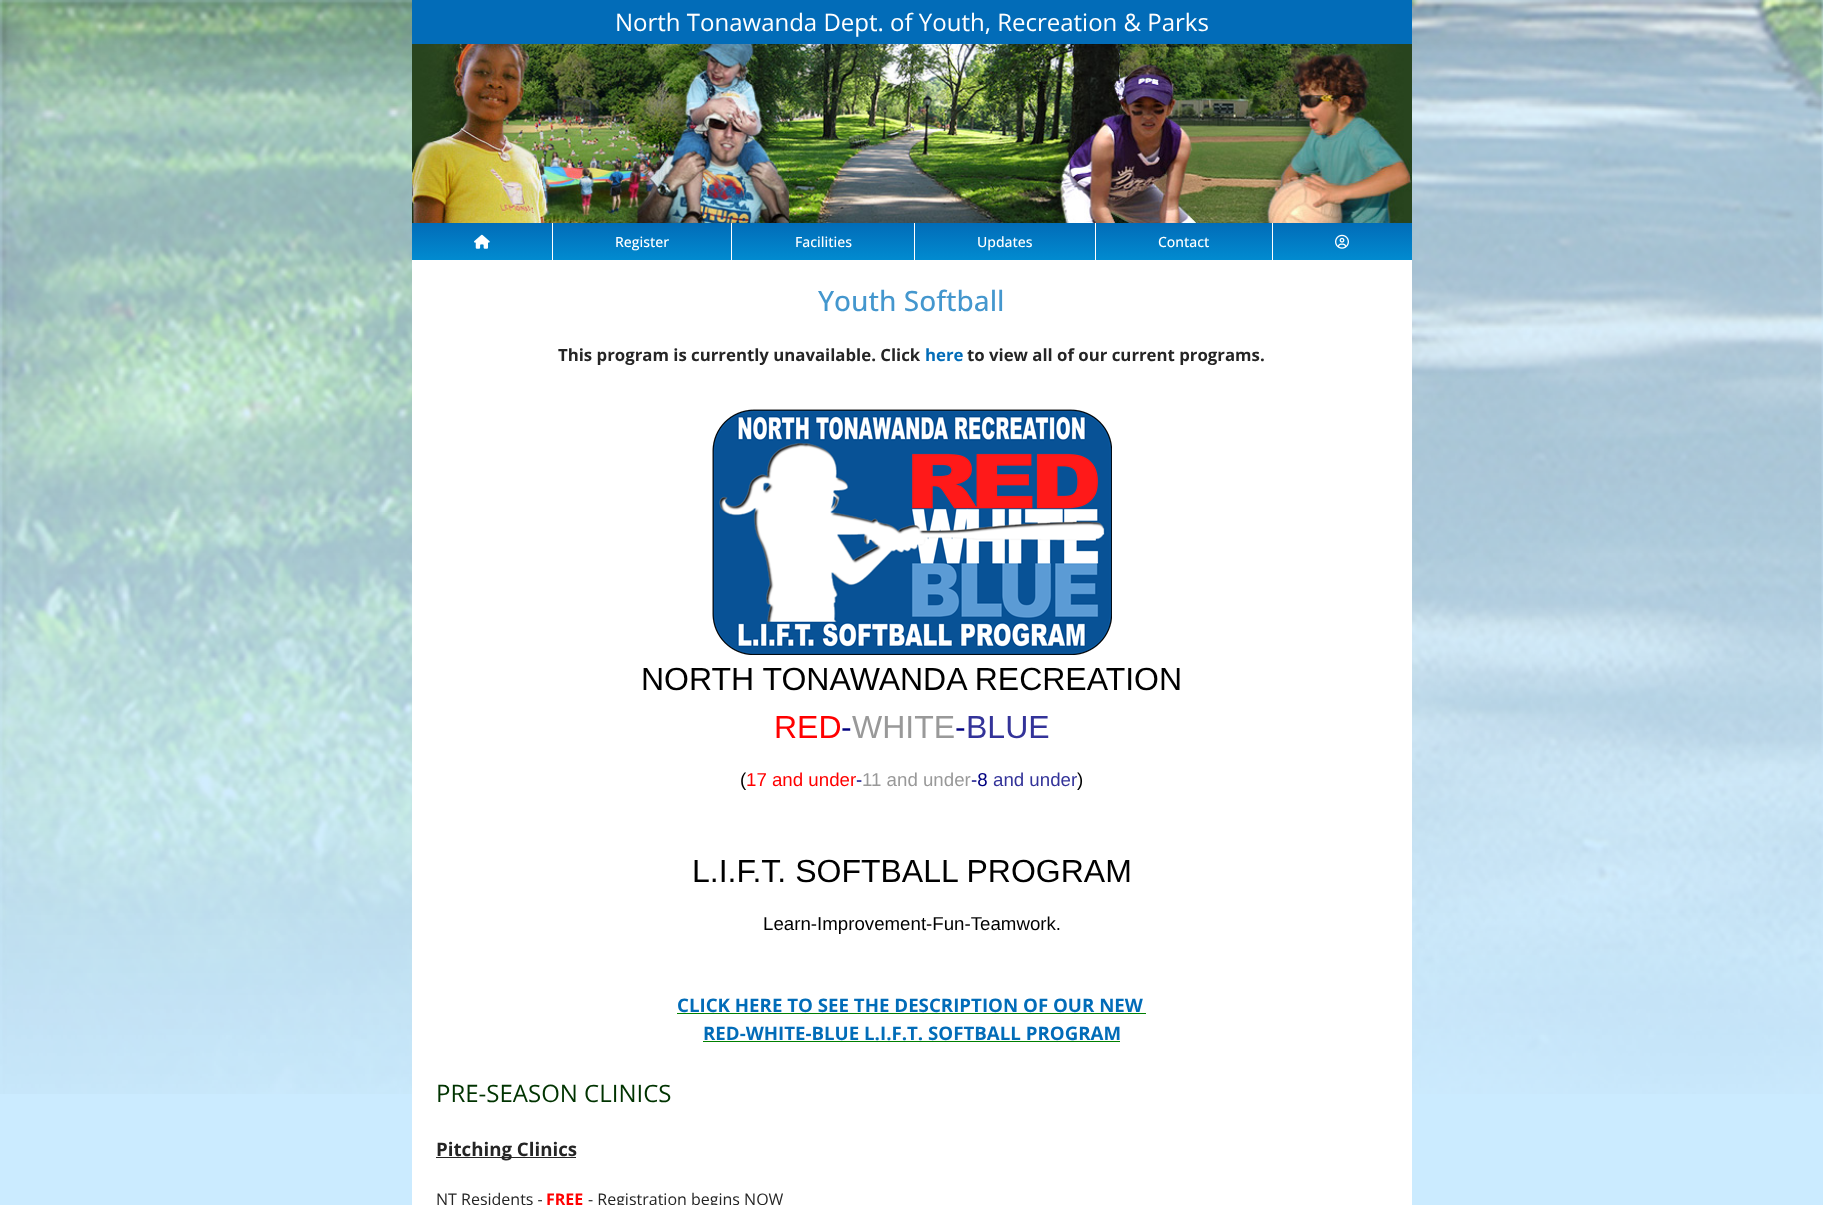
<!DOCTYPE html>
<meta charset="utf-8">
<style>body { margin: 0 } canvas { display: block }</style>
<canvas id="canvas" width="1823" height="1205"></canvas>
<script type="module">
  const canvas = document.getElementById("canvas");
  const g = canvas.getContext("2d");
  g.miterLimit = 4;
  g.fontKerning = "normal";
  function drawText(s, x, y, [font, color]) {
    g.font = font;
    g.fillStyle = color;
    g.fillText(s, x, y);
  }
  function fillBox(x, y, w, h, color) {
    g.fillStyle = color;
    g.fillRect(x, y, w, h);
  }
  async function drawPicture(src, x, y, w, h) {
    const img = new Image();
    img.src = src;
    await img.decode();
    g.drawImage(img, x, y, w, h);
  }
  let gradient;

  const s1 = ["24px Open Sans", "#FFFFFF"];
  const s2 = ["500 14px Open Sans", "#FFFFFF"];
  const s3 = ["500 28px Open Sans", "#4497CE"];
  const s4 = ["bold 16.8px Open Sans", "#252525"];
  const s5 = ["bold 16.8px Open Sans", "#026CB8"];
  const s6 = ["32px Liberation Sans", "#000000"];
  const s7 = ["32px Liberation Sans", "#FF0000"];
  const s8 = ["32px Liberation Sans", "#000080"];
  const s9 = ["32px Liberation Sans", "#999999"];
  const s10 = ["32px Liberation Sans", "#333399"];
  const s11 = ["18.7px Liberation Sans", "#000000"];
  const s12 = ["18.7px Liberation Sans", "#FF0000"];
  const s13 = ["18.7px Liberation Sans", "#000080"];
  const s14 = ["18.7px Liberation Sans", "#999999"];
  const s15 = ["18.7px Liberation Sans", "#333399"];
  const s16 = ["bold 18.7px Open Sans", "#026CB8"];
  const s17 = ["24px Open Sans", "#003300"];
  const s18 = ["bold 18.7px Open Sans", "#252525"];
  const s19 = ["16px Open Sans", "#252525"];
  const s20 = ["bold 16px Open Sans", "#FF0000"];

  fillBox(0, 0, 1823, 1205, "#CBEBFF");
  await drawPicture("pic1.png", 0, 0, 1823, 1094);
  fillBox(412, 260, 1000, 945, "#FFFFFF");
  fillBox(412, 0, 1000, 44, "#026CB8");
  drawText("North Tonawanda Dept. of Youth, Recreation & Parks", 615, 31, s1);
  await drawPicture("pic2.png", 412, 44, 1000, 179);
  gradient = g.createLinearGradient(912, 223, 912, 260);
  gradient.addColorStop(0, "#026CB8");
  gradient.addColorStop(1, "#018BD0");
  g.fillStyle = gradient;
  g.fillRect(412, 223, 1000, 37);
  fillBox(552, 223, 1, 37, "#FFFFFF");
  await drawPicture("pic3.png", 474, 234, 16, 15);
  fillBox(731, 223, 1, 37, "#FFFFFF");
  drawText("Register", 615, 247, s2);
  fillBox(914, 223, 1, 37, "#FFFFFF");
  drawText("Facilities", 795, 247, s2);
  fillBox(1095, 223, 1, 37, "#FFFFFF");
  drawText("Updates", 977, 247, s2);
  fillBox(1272, 223, 1, 37, "#FFFFFF");
  drawText("Contact", 1158, 247, s2);
  await drawPicture("pic4.png", 1335, 234, 14, 15);
  drawText("Youth Softball", 818, 311, s3);
  drawText("This program is currently unavailable. Click", 558, 361, s4);
  drawText("here", 925, 361, s5);
  drawText("to view all of our current programs.", 967, 361, s4);
  await drawPicture("pic5.png", 712, 409, 400, 246);
  drawText("NORTH TONAWANDA RECREATION", 641, 690, s6);
  drawText("RED", 774, 738, s7);
  drawText("-", 841, 738, s8);
  drawText("WHITE", 852, 738, s9);
  drawText("-", 955, 738, s8);
  drawText("BLUE", 966, 738, s10);
  drawText("(", 740, 786, s11);
  drawText("17 and under", 746, 786, s12);
  drawText("-", 856, 786, s13);
  drawText("11 and under", 862, 786, s14);
  drawText("-8", 971, 786, s13);
  drawText("and under", 993, 786, s15);
  drawText(")", 1077, 786, s11);
  drawText("L.I.F.T. SOFTBALL PROGRAM", 692, 882, s6);
  drawText("Learn-Improvement-Fun-Teamwork.", 763, 930, s11);
  drawText("CLICK HERE TO SEE THE DESCRIPTION OF OUR NEW", 677, 1012, s16);
  fillBox(677, 1013, 469, 1, "#008000");
  drawText("RED-WHITE-BLUE L.I.F.T. SOFTBALL PROGRAM", 703, 1040, s16);
  fillBox(703, 1041, 417, 1, "#008000");
  drawText("PRE-SEASON CLINICS", 436, 1102, s17);
  fillBox(436, 1157, 140, 1, "#252525");
  drawText("Pitching Clinics", 436, 1156, s18);
  drawText("NT Residents -", 436, 1205, s19);
  drawText("FREE", 546, 1205, s20);
  drawText("- Registration begins NOW", 588, 1205, s19);
</script>
